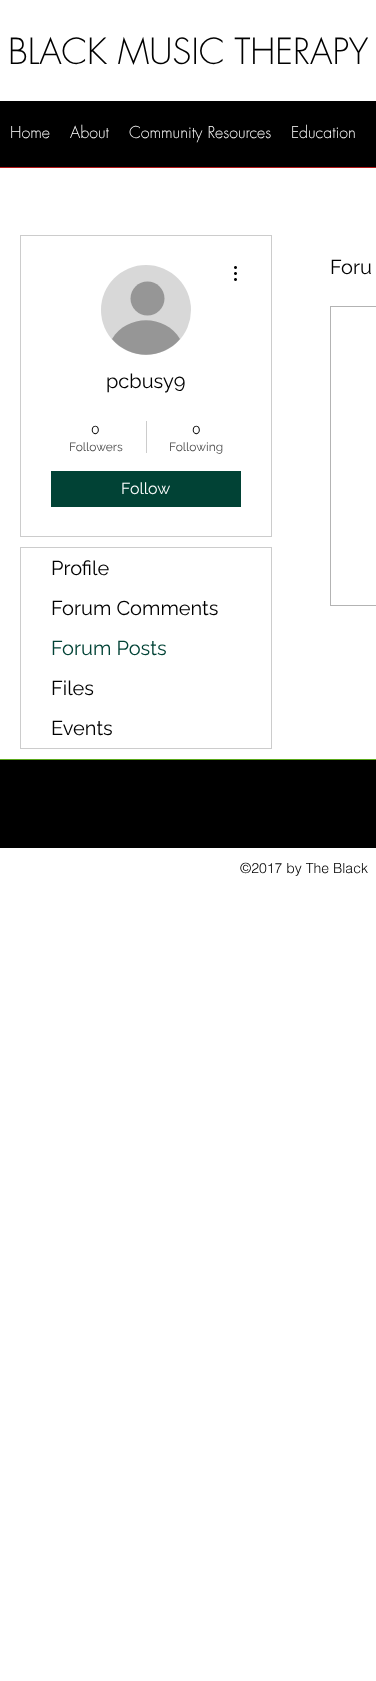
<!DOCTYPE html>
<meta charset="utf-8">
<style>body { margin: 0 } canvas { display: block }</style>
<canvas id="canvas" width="376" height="1681"></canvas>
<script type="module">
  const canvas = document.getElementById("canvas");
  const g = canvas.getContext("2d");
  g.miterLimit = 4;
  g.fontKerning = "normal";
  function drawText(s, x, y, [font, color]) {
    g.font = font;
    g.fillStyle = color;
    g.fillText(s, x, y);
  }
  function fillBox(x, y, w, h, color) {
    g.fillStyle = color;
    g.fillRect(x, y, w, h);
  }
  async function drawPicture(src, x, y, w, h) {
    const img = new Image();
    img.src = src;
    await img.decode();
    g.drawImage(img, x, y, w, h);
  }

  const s1 = ["300 35px futura", "#000000"];
  const s2 = ["300 16px futura", "#FFFFFF"];
  const s3 = ["20px Raleway", "#000000"];
  const s4 = ["14px Raleway", "#000000"];
  const s5 = ["12px Raleway", "#4D4D4D"];
  const s6 = ["16px Raleway", "#FFFFFF"];
  const s7 = ["20px Raleway", "#014235"];
  const s8 = ["300 14px helvetica", "#000000"];

  fillBox(0, 0, 376, 1681, "#FFFFFF");
  drawText("BLACK MUSIC THERAPY", 8, 64, s1);
  fillBox(0, 101, 376, 66, "#000000");
  drawText("Home", 10, 138, s2);
  drawText("About", 70, 138, s2);
  drawText("Community Resources", 129, 138, s2);
  drawText("Education", 291, 138, s2);
  fillBox(0, 167, 376, 1, "#B41818");
  drawText("Foru", 330, 274, s3);
  g.strokeStyle = "#B3B3B3";
  g.strokeRect(330.5, 306.5, 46, 299);
  g.strokeStyle = "#CCCCCC";
  g.strokeRect(20.5, 235.5, 251, 301);
  g.fillStyle = "#D8D8D8";
  g.beginPath();
  g.arc(146, 310, 45, 0, Math.PI * 2);
  g.fill();
  g.fillStyle = "#969696";
  g.beginPath();
  g.arc(147.5, 298.5, 17, 0, Math.PI * 2);
  g.fill();
  g.beginPath();
  g.moveTo(180, 339);
  g.bezierCurveTo(162, 360, 130, 360, 112, 339);
  g.bezierCurveTo(127, 314, 165, 314, 180, 339);
  g.closePath();
  g.fill();
  await drawPicture("pic1.png", 234, 266, 3, 15);
  drawText("pcbusy9", 106, 388, s3);
  drawText("0", 91, 434, s4);
  drawText("Followers", 69, 451, s5);
  fillBox(146, 421, 1, 32, "#CCCCCC");
  drawText("0", 192, 434, s4);
  drawText("Following", 169, 451, s5);
  fillBox(51, 471, 190, 36, "#014235");
  drawText("Follow", 121, 494, s6);
  g.strokeRect(20.5, 547.5, 251, 201);
  drawText("Profile", 51, 575, s3);
  drawText("Forum Comments", 51, 615, s3);
  drawText("Forum Posts", 51, 655, s7);
  drawText("Files", 51, 695, s3);
  drawText("Events", 51, 735, s3);
  fillBox(0, 760, 376, 88, "#000000");
  fillBox(0, 759, 376, 1, "#5AA81A");
  drawText("©2017 by The Black", 240, 873, s8);
</script>
